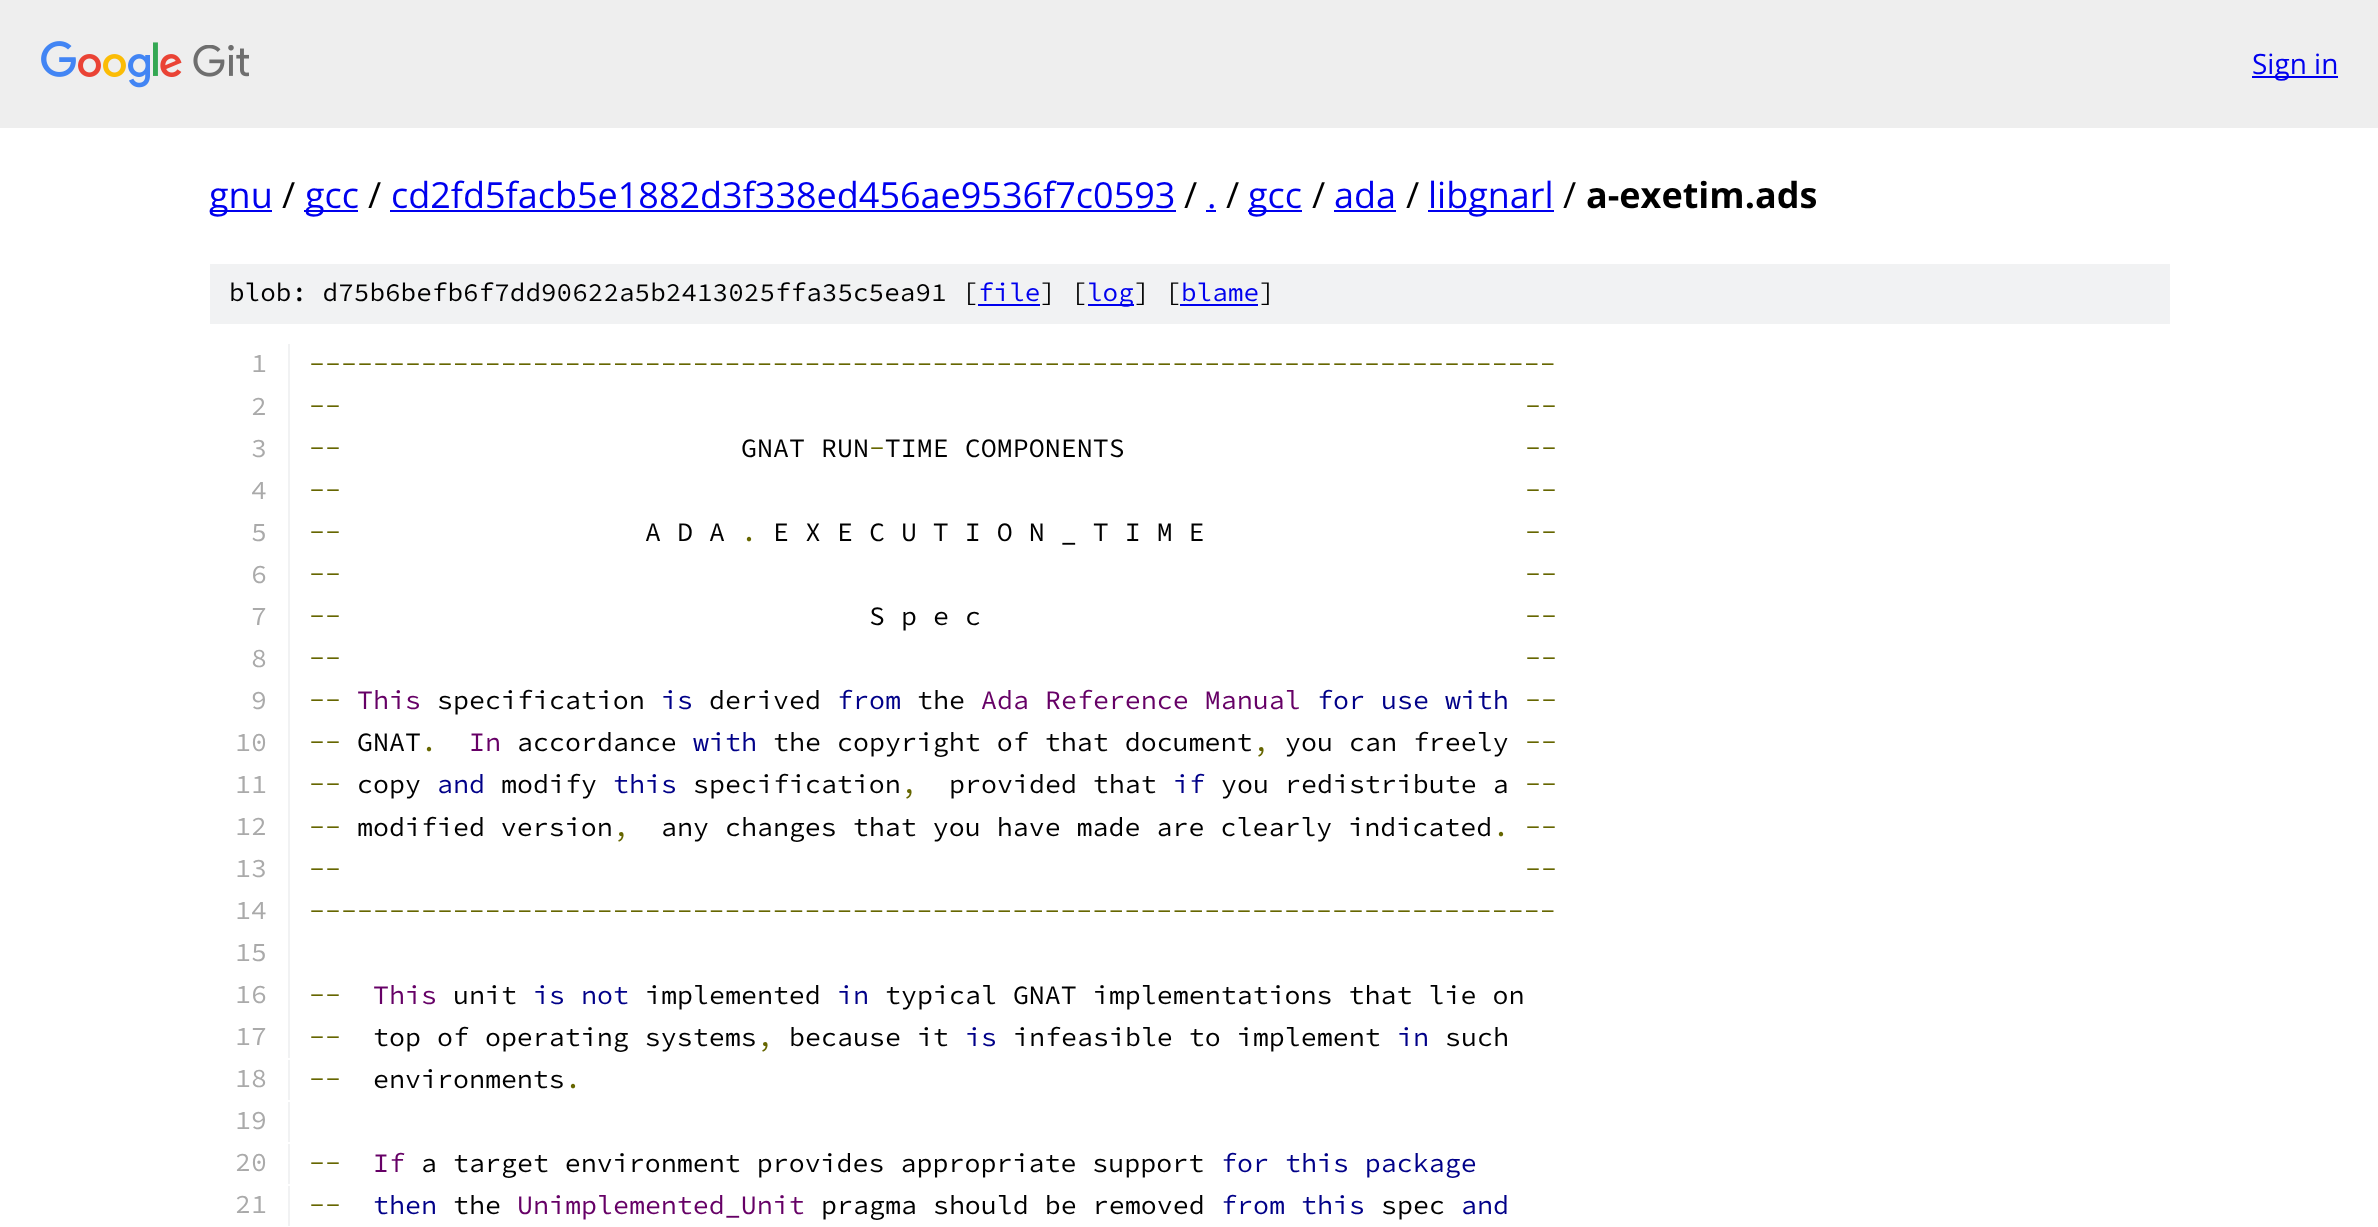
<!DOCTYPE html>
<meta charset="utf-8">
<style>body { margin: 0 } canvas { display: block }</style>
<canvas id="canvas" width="2378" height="1227"></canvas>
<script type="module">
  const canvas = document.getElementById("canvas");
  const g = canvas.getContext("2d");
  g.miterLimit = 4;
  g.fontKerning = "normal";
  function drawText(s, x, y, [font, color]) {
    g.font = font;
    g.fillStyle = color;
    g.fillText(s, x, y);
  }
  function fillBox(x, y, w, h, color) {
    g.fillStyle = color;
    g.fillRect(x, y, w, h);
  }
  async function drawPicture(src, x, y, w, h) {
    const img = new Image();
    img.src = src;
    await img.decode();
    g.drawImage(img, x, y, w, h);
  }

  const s1 = ["28px Open Sans", "#0000EE"];
  const s2 = ["36px Open Sans", "#0000EE"];
  const s3 = ["36px Open Sans", "#000000"];
  const s4 = ["bold 36px Open Sans", "#000000"];
  const s5 = ["200 26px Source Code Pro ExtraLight", "#000000"];
  const s6 = ["200 26px Source Code Pro ExtraLight", "#0000EE"];
  const s7 = ["200 26.65px Source Code Pro ExtraLight", "#AAAAAA"];
  const s8 = ["200 26.65px Source Code Pro ExtraLight", "#666600"];
  const s9 = ["200 26.65px Source Code Pro ExtraLight", "#000000"];
  const s10 = ["200 26.65px Source Code Pro ExtraLight", "#660066"];
  const s11 = ["200 26.65px Source Code Pro ExtraLight", "#000088"];

  fillBox(0, 0, 2378, 1227, "#FFFFFF");
  fillBox(0, 0, 2378, 128, "#EEEEEE");
  await drawPicture("pic1.png", 41, 41, 208, 47);
  fillBox(2252, 76, 86, 2, "#0000EE");
  drawText("Sign in", 2252, 74, s1);
  fillBox(210, 210, 62, 2, "#0000EE");
  drawText("gnu", 209, 208, s2);
  drawText("/", 282, 208, s3);
  fillBox(304, 210, 54, 2, "#0000EE");
  drawText("gcc", 305, 208, s2);
  drawText("/", 368, 208, s3);
  drawText("cd2fd5facb5e1882d3f338ed456ae9536f7c0593", 391, 208, s2);
  fillBox(390, 210, 786, 2, "#0000EE");
  drawText("/", 1184, 208, s3);
  drawText(".", 1207, 208, s2);
  fillBox(1206, 210, 10, 2, "#0000EE");
  drawText("/", 1226, 208, s3);
  fillBox(1248, 210, 54, 2, "#0000EE");
  drawText("gcc", 1248, 208, s2);
  drawText("/", 1312, 208, s3);
  drawText("ada", 1334, 208, s2);
  fillBox(1334, 210, 62, 2, "#0000EE");
  drawText("/", 1406, 208, s3);
  fillBox(1428, 210, 126, 2, "#0000EE");
  drawText("libgnarl", 1428, 208, s2);
  drawText("/", 1563, 208, s3);
  drawText("a-exetim.ads", 1586, 208, s4);
  fillBox(210, 264, 1960, 60, "#F1F2F3");
  drawText("blob: d75b6befb6f7dd90622a5b2413025ffa35c5ea91 [", 229, 301, s5);
  drawText("file", 978, 301, s6);
  fillBox(978, 304, 62, 2, "#0000EE");
  drawText("] [", 1040, 301, s5);
  fillBox(1088, 304, 46, 2, "#0000EE");
  drawText("log", 1087, 301, s6);
  drawText("] [", 1134, 301, s5);
  drawText("blame", 1181, 301, s6);
  fillBox(1180, 304, 78, 2, "#0000EE");
  drawText("]", 1259, 301, s5);
  fillBox(288, 344, 2, 714, "#F1F2F3");
  drawText("1", 251, 372, s7);
  drawText("------------------------------------------------------------------------------", 309, 373, s8);
  drawText("2", 251, 415, s7);
  drawText("--", 309, 415, s8);
  drawText("--", 1525, 415, s8);
  drawText("3", 251, 457, s7);
  drawText("--", 309, 457, s8);
  drawText("GNAT RUN TIME COMPONENTS", 741, 457, s9);
  drawText("-", 869, 457, s8);
  drawText("--", 1525, 457, s8);
  drawText("4", 251, 499, s7);
  drawText("--", 309, 499, s8);
  drawText("--", 1525, 499, s8);
  drawText("5", 251, 541, s7);
  drawText("--", 309, 541, s8);
  drawText("A D A", 645, 541, s9);
  drawText("E X E C U T I O N _ T I M E", 773, 541, s9);
  drawText("--", 1525, 541, s8);
  drawText(".", 741, 541, s8);
  drawText("6", 251, 583, s7);
  drawText("--", 309, 583, s8);
  drawText("--", 1525, 583, s8);
  drawText("7", 251, 625, s7);
  drawText("--", 309, 625, s8);
  drawText("S p e c", 869, 625, s9);
  drawText("--", 1525, 625, s8);
  drawText("8", 251, 667, s7);
  drawText("--", 309, 667, s8);
  drawText("--", 1525, 667, s8);
  drawText("9", 251, 709, s7);
  drawText("--", 309, 709, s8);
  drawText("This", 357, 709, s10);
  drawText("specification", 437, 709, s9);
  drawText("is", 661, 709, s11);
  drawText("derived", 709, 709, s9);
  drawText("from", 837, 709, s11);
  drawText("the", 917, 709, s9);
  drawText("Ada Reference Manual", 981, 709, s10);
  drawText("for use with", 1317, 709, s11);
  drawText("--", 1525, 709, s8);
  drawText("10", 235, 751, s7);
  drawText("--", 309, 751, s8);
  drawText("GNAT", 357, 751, s9);
  drawText("In", 469, 751, s10);
  drawText("accordance", 517, 751, s9);
  drawText("with", 693, 751, s11);
  drawText("the copyright of that document", 773, 751, s9);
  drawText("you can freely", 1285, 751, s9);
  drawText("--", 1525, 751, s8);
  drawText(".", 421, 751, s8);
  drawText(",", 1253, 751, s8);
  drawText("11", 235, 793, s7);
  drawText("--", 309, 793, s8);
  drawText("copy", 357, 793, s9);
  drawText("and", 437, 793, s11);
  drawText("modify", 501, 793, s9);
  drawText("this", 613, 793, s11);
  drawText("specification", 693, 793, s9);
  drawText("provided that", 949, 793, s9);
  drawText("if", 1173, 793, s11);
  drawText("you redistribute a", 1221, 793, s9);
  drawText("--", 1525, 793, s8);
  drawText(",", 901, 793, s8);
  drawText("12", 235, 835, s7);
  drawText("--", 309, 836, s8);
  drawText("modified version", 357, 836, s9);
  drawText(",", 613, 836, s8);
  drawText("any changes that you have made are clearly indicated", 661, 836, s9);
  drawText(". --", 1493, 836, s8);
  drawText("13", 235, 877, s7);
  drawText("--", 309, 878, s8);
  drawText("--", 1525, 878, s8);
  drawText("14", 235, 919, s7);
  drawText("------------------------------------------------------------------------------", 309, 920, s8);
  drawText("15", 235, 961, s7);
  drawText("16", 235, 1003, s7);
  drawText("--", 309, 1004, s8);
  drawText("This", 373, 1004, s10);
  drawText("unit", 453, 1004, s9);
  drawText("is not", 533, 1004, s11);
  drawText("implemented", 645, 1004, s9);
  drawText("in", 837, 1004, s11);
  drawText("typical GNAT implementations that lie on", 885, 1004, s9);
  drawText("17", 235, 1045, s7);
  drawText("--", 309, 1046, s8);
  drawText("top of operating systems", 373, 1046, s9);
  drawText("because it", 789, 1046, s9);
  drawText("is", 965, 1046, s11);
  drawText("infeasible to implement", 1013, 1046, s9);
  drawText("in", 1397, 1046, s11);
  drawText("such", 1445, 1046, s9);
  drawText(",", 757, 1046, s8);
  fillBox(288, 1060, 2, 40, "#F1F2F3");
  drawText("18", 235, 1087, s7);
  drawText("--", 309, 1088, s8);
  drawText("environments", 373, 1088, s9);
  drawText(".", 565, 1088, s8);
  fillBox(288, 1102, 2, 40, "#F1F2F3");
  drawText("19", 235, 1129, s7);
  fillBox(288, 1144, 2, 40, "#F1F2F3");
  drawText("20", 235, 1171, s7);
  drawText("--", 309, 1172, s8);
  drawText("If", 373, 1172, s10);
  drawText("a target environment provides appropriate support", 421, 1172, s9);
  drawText("for this package", 1221, 1172, s11);
  fillBox(288, 1186, 2, 40, "#F1F2F3");
  drawText("21", 235, 1213, s7);
  drawText("--", 309, 1214, s8);
  drawText("then", 373, 1214, s11);
  drawText("the", 453, 1214, s9);
  drawText("Unimplemented_Unit", 517, 1214, s10);
  drawText("pragma should be removed", 821, 1214, s9);
  drawText("from this", 1221, 1214, s11);
  drawText("spec", 1381, 1214, s9);
  drawText("and", 1461, 1214, s11);
</script>
